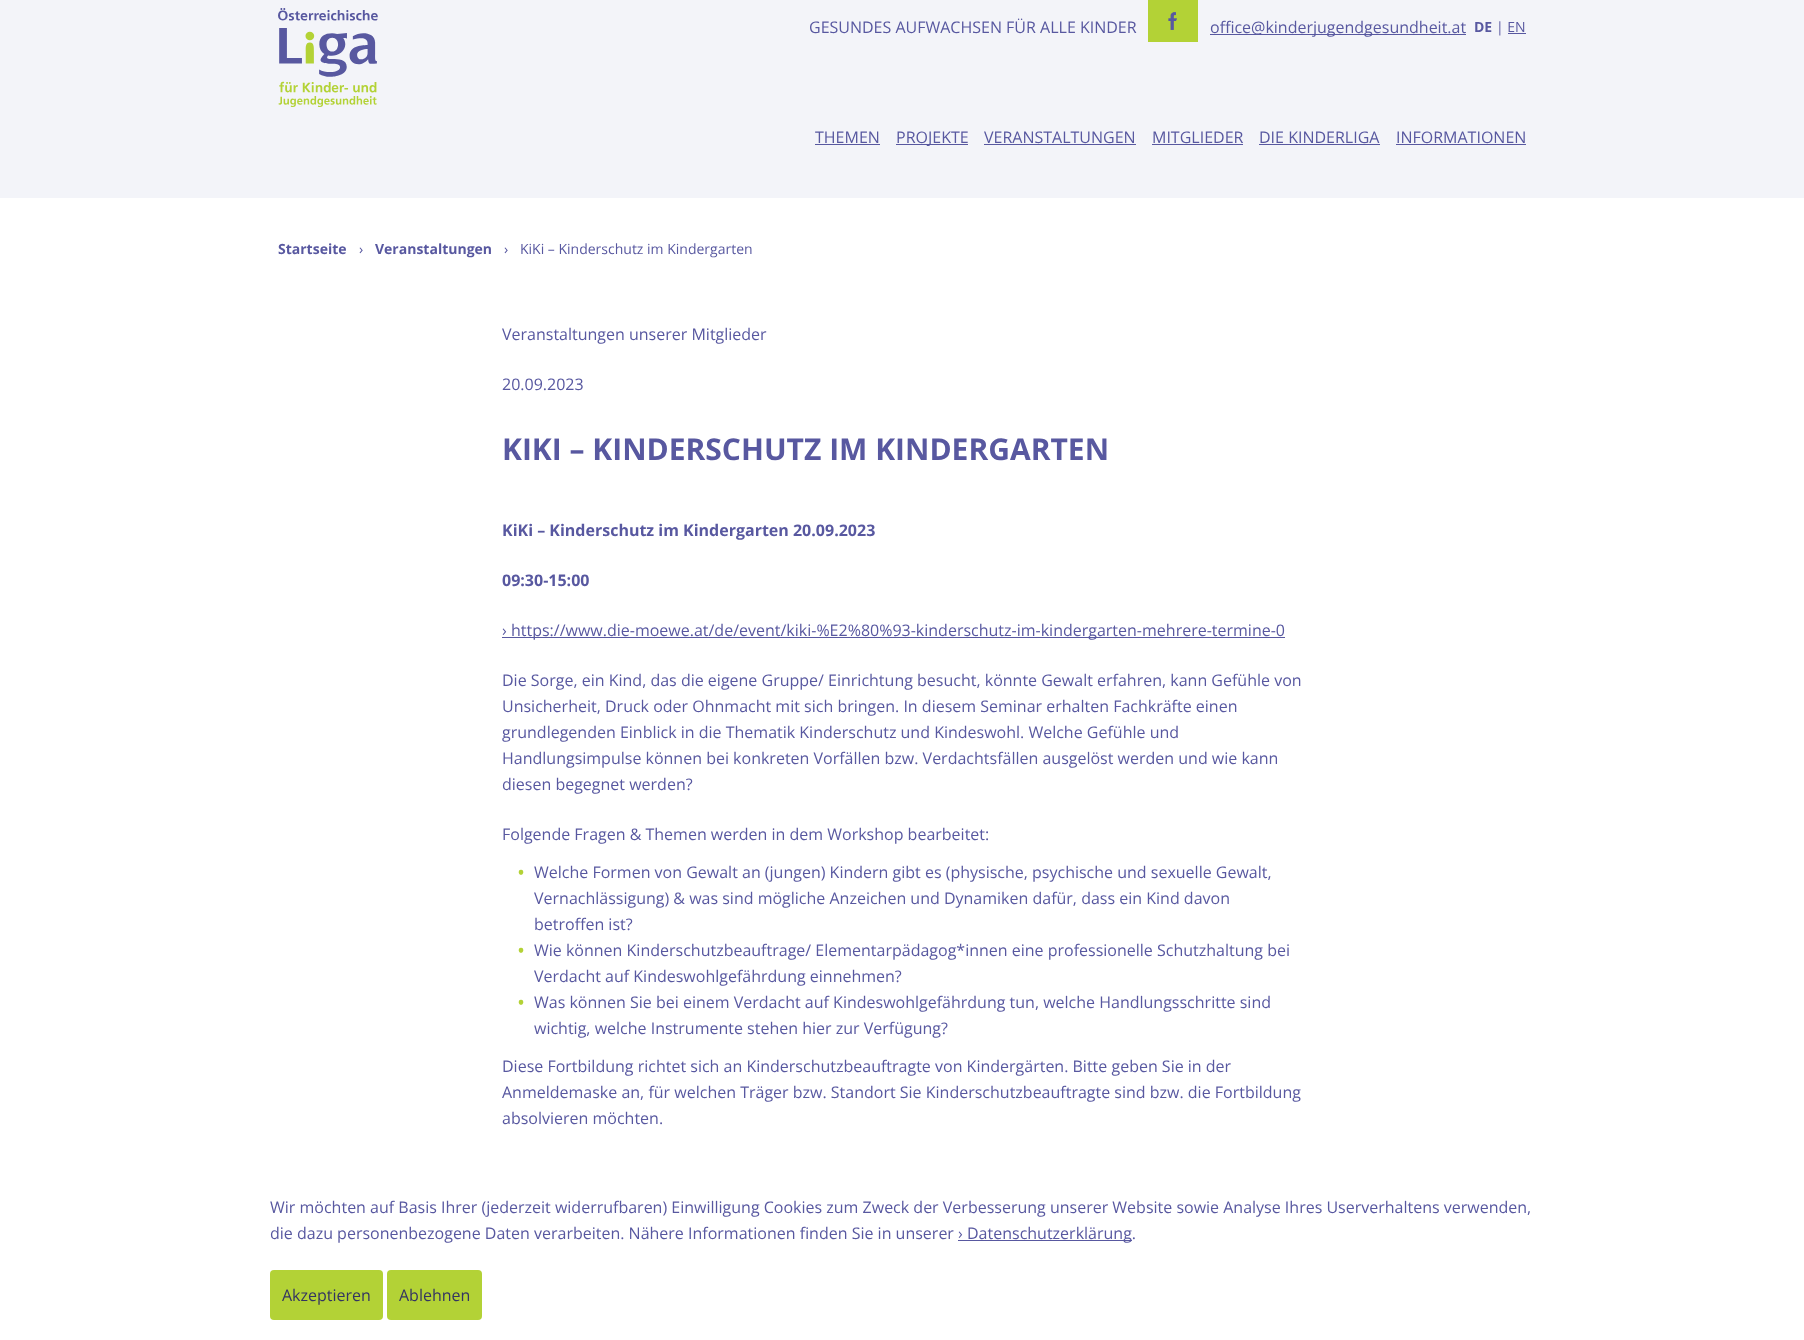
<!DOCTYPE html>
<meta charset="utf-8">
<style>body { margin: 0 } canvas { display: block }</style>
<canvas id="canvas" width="1804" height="1340"></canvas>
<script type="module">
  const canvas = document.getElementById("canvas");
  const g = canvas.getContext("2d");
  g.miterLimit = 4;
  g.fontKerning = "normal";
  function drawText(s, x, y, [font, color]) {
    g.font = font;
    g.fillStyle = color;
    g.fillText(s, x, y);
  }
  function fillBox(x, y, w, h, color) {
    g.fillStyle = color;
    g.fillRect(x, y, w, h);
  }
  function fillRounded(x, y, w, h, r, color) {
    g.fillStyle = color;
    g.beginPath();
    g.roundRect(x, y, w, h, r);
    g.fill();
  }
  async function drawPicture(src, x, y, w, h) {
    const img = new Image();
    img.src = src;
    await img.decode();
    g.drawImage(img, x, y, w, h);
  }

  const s1 = ["16px Open Sans", "#5858A0"];
  const s2 = ["bold 14px Open Sans", "#5858A0"];
  const s3 = ["14px Open Sans", "#5858A0"];
  const s4 = ["bold 30px Open Sans", "#5858A0"];
  const s5 = ["bold 16px Open Sans", "#5858A0"];
  const s6 = ["bold 16px Open Sans", "#B3D236"];
  const s7 = ["16px Open Sans", "#343462"];

  fillBox(0, 0, 1804, 1340, "#FFFFFF");
  fillBox(0, 0, 1804, 198, "#F3F4F9");
  await drawPicture("pic1.png", 278, 8, 100, 99);
  drawText("GESUNDES AUFWACHSEN FÜR ALLE KINDER", 809, 33, s1);
  await drawPicture("pic2.png", 1148, 0, 50, 42);
  fillBox(1210, 34, 256, 1, "#5858A0");
  drawText("office@kinderjugendgesundheit.at", 1210, 33, s1);
  drawText("DE", 1474, 32, s2);
  drawText("| EN", 1496, 32, s3);
  fillBox(1508, 33, 18, 1, "#5858A0");
  drawText("THEMEN", 815, 143, s1);
  fillBox(815, 144, 65, 1, "#5858A0");
  fillBox(896, 144, 72, 1, "#5858A0");
  drawText("PROJEKTE", 896, 143, s1);
  drawText("VERANSTALTUNGEN", 984, 143, s1);
  fillBox(984, 144, 152, 1, "#5858A0");
  drawText("MITGLIEDER", 1152, 143, s1);
  fillBox(1152, 144, 91, 1, "#5858A0");
  drawText("DIE KINDERLIGA", 1259, 143, s1);
  fillBox(1259, 144, 121, 1, "#5858A0");
  drawText("INFORMATIONEN", 1396, 143, s1);
  fillBox(1396, 144, 130, 1, "#5858A0");
  drawText("Startseite", 278, 254, s2);
  drawText("›", 359, 254, s3);
  drawText("Veranstaltungen", 375, 254, s2);
  drawText("›", 504, 254, s3);
  drawText("KiKi – Kinderschutz im Kindergarten", 520, 254, s3);
  drawText("Veranstaltungen unserer Mitglieder", 502, 340, s1);
  drawText("20.09.2023", 502, 390, s1);
  drawText("KIKI – KINDERSCHUTZ IM KINDERGARTEN", 502, 460, s4);
  drawText("KiKi – Kinderschutz im Kindergarten 20.09.2023", 502, 536, s5);
  drawText("09:30-15:00", 502, 586, s5);
  fillBox(502, 637, 783, 1, "#5858A0");
  drawText("› https://www.die-moewe.at/de/event/kiki-%E2%80%93-kinderschutz-im-kindergarten-mehrere-termine-0", 502, 636, s1);
  drawText("Die Sorge, ein Kind, das die eigene Gruppe/ Einrichtung besucht, könnte Gewalt erfahren, kann Gefühle von", 502, 686, s1);
  drawText("Unsicherheit, Druck oder Ohnmacht mit sich bringen. In diesem Seminar erhalten Fachkräfte einen", 502, 712, s1);
  drawText("grundlegenden Einblick in die Thematik Kinderschutz und Kindeswohl. Welche Gefühle und", 502, 738, s1);
  drawText("Handlungsimpulse können bei konkreten Vorfällen bzw. Verdachtsfällen ausgelöst werden und wie kann", 502, 764, s1);
  drawText("diesen begegnet werden?", 502, 790, s1);
  drawText("Folgende Fragen & Themen werden in dem Workshop bearbeitet:", 502, 840, s1);
  drawText("•", 518, 878, s6);
  drawText("Welche Formen von Gewalt an (jungen) Kindern gibt es (physische, psychische und sexuelle Gewalt,", 534, 878, s1);
  drawText("Vernachlässigung) & was sind mögliche Anzeichen und Dynamiken dafür, dass ein Kind davon", 534, 904, s1);
  drawText("betroffen ist?", 534, 930, s1);
  drawText("•", 518, 956, s6);
  drawText("Wie können Kinderschutzbeauftrage/ Elementarpädagog*innen eine professionelle Schutzhaltung bei", 534, 956, s1);
  drawText("Verdacht auf Kindeswohlgefährdung einnehmen?", 534, 982, s1);
  drawText("•", 518, 1008, s6);
  drawText("Was können Sie bei einem Verdacht auf Kindeswohlgefährdung tun, welche Handlungsschritte sind", 534, 1008, s1);
  drawText("wichtig, welche Instrumente stehen hier zur Verfügung?", 534, 1034, s1);
  drawText("Diese Fortbildung richtet sich an Kinderschutzbeauftragte von Kindergärten. Bitte geben Sie in der", 502, 1072, s1);
  drawText("Anmeldemaske an, für welchen Träger bzw. Standort Sie Kinderschutzbeauftragte sind bzw. die Fortbildung", 502, 1098, s1);
  drawText("absolvieren möchten.", 502, 1124, s1);
  drawText("Wir möchten auf Basis Ihrer (jederzeit widerrufbaren) Einwilligung Cookies zum Zweck der Verbesserung unserer Website sowie Analyse Ihres Userverhaltens verwenden,", 270, 1213, s1);
  drawText("die dazu personenbezogene Daten verarbeiten. Nähere Informationen finden Sie in unserer ›", 270, 1239, s1);
  fillBox(958, 1240, 174, 1, "#5858A0");
  drawText("Datenschutzerklärung.", 967, 1239, s1);
  fillRounded(270, 1270, 113, 50, 4, "#B3D236");
  drawText("Akzeptieren", 282, 1301, s7);
  fillRounded(387, 1270, 95, 50, 4, "#B3D236");
  drawText("Ablehnen", 399, 1301, s7);
</script>
